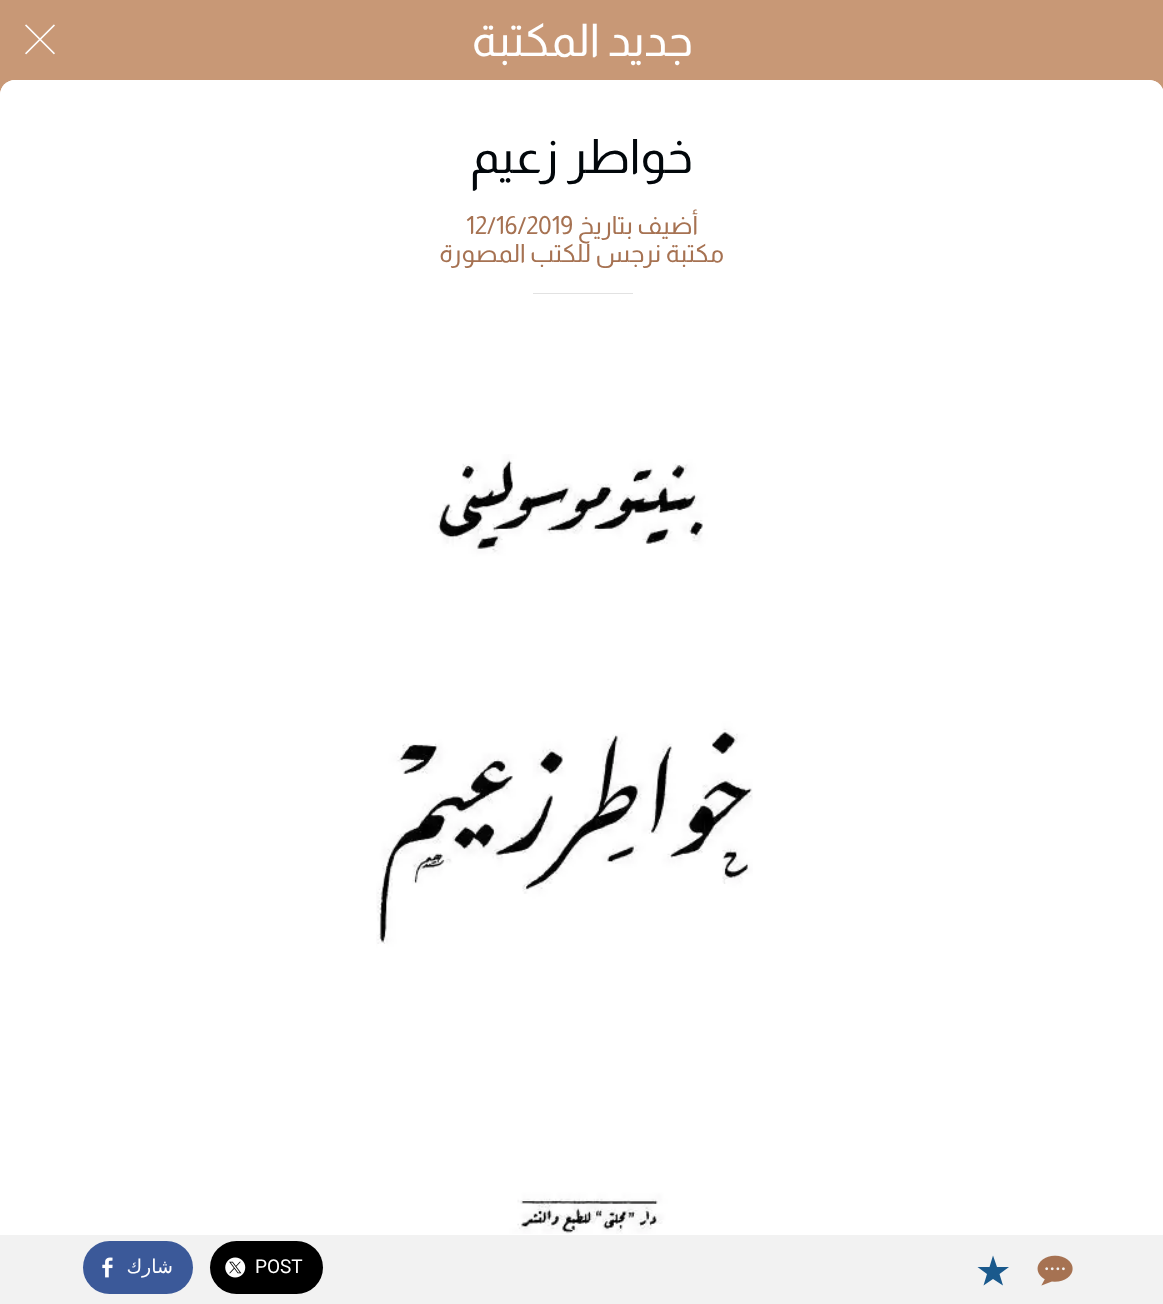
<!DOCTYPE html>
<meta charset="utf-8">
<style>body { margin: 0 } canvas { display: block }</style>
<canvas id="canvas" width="1163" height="1304"></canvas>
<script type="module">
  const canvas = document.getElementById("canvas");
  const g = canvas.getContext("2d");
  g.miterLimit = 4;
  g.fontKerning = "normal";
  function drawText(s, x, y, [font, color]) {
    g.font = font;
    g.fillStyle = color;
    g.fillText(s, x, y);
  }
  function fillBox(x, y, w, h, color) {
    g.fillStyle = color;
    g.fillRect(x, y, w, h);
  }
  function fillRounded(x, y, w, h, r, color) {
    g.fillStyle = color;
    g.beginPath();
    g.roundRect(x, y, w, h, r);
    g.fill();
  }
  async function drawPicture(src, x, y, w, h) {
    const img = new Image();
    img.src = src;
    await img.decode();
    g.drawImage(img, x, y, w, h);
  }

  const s1 = ["45px Almarai", "#FFFFFF"];
  const s2 = ["47.5px Almarai", "#02070B"];
  const s3 = ["25px Almarai", "#A67252"];
  const s4 = ["19px Roboto", "#FFFFFF"];
  const s5 = ["19px DejaVu Sans", "#FFFFFF"];

  fillBox(0, 0, 1163, 1304, "#FFFFFF");
  g.fillStyle = "#C89876";
  g.beginPath();
  g.moveTo(15, 65);
  g.bezierCurveTo(7, 65, 0, 72, 0, 80);
  g.lineTo(0, 95);
  g.bezierCurveTo(0, 87, 7, 80, 15, 80);
  g.lineTo(1149, 80);
  g.bezierCurveTo(1157, 80, 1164, 87, 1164, 95);
  g.lineTo(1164, 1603);
  g.lineTo(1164, 80);
  g.bezierCurveTo(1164, 72, 1157, 65, 1149, 65);
  g.closePath();
  g.fill();
  fillBox(0, 0, 1163, 80, "#C89876");
  g.direction = "rtl";
  drawText("جديد المكتبة", 693, 56, s1);
  await drawPicture("pic1.png", 25, 24, 30, 31);
  g.beginPath();
  g.moveTo(15, 80);
  g.lineTo(1149, 80);
  g.bezierCurveTo(1157.5, 80, 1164, 86.5, 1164, 95);
  g.lineTo(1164, 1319);
  g.lineTo(0, 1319);
  g.lineTo(0, 95);
  g.bezierCurveTo(0, 86.5, 6.5, 80, 15, 80);
  g.closePath();
  g.fill();
  drawText("خواطر زعيم", 693, 173, s2);
  drawText("أضيف بتاريخ", 698, 234, s3);
  g.direction = "ltr";
  drawText("12/16/2019", 466, 234, s3);
  g.direction = "rtl";
  drawText("مكتبة نرجس للكتب المصورة", 724, 262, s3);
  fillBox(533, 293, 100, 1, "#E2E2E2");
  await drawPicture("pic2.png", 376, 454, 377, 780);
  fillBox(0, 1235, 1163, 69, "#F2F2F2");
  await drawPicture("pic3.png", 1037, 1255, 36, 31);
  g.fillStyle = "#1A598C";
  g.beginPath();
  g.moveTo(1009, 1267);
  g.lineTo(997, 1267);
  g.lineTo(993, 1255.5);
  g.lineTo(989.5, 1267);
  g.lineTo(977.5, 1267);
  g.lineTo(987, 1274);
  g.lineTo(983.5, 1285.5);
  g.lineTo(993, 1279);
  g.lineTo(1003, 1285.5);
  g.lineTo(999.5, 1274);
  g.closePath();
  g.fill();
  fillRounded(210, 1241, 113, 53, 26.5, "#000000");
  g.direction = "ltr";
  drawText("POST", 255, 1273, s4);
  await drawPicture("pic4.png", 225, 1257, 21, 21);
  fillRounded(83, 1241, 110, 53, 26.5, "#3B5999");
  g.direction = "rtl";
  drawText("شارك", 173, 1273, s5);
  await drawPicture("pic5.png", 102, 1257, 11, 21);
</script>
